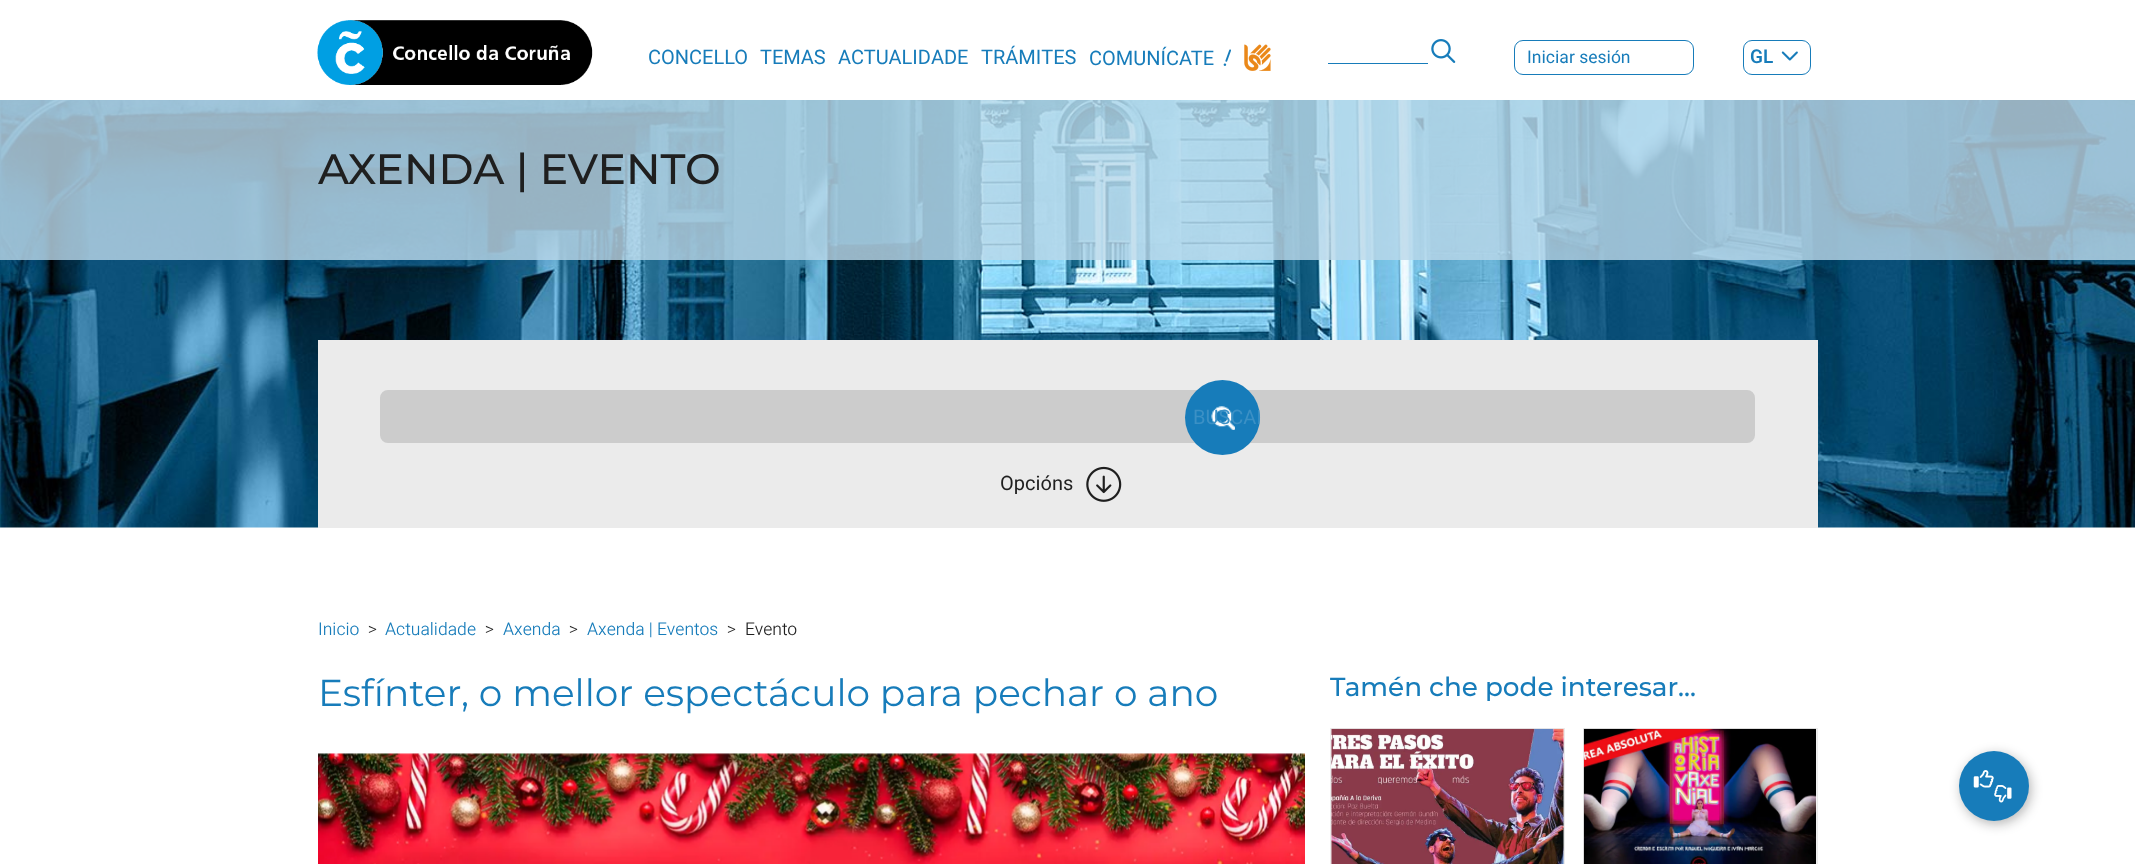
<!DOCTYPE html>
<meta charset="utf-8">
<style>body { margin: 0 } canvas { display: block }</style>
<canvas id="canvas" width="2135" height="864"></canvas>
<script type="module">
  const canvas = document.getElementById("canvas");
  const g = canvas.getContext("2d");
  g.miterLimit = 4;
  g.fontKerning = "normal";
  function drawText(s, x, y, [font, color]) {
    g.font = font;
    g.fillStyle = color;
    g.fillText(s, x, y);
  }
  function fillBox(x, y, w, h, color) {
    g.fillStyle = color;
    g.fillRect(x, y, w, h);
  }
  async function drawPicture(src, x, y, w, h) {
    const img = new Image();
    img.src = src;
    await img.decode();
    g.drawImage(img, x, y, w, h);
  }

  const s1 = ["20px Heebo", "#177CBA"];
  const s2 = ["17.5px Heebo", "#177CBA"];
  const s3 = ["600 19px Heebo", "#177CBA"];
  const s4 = ["500 42.5px Montserrat", "#1F1F1F"];
  const s5 = ["20px Heebo", "#3B90C5"];
  const s6 = ["20px Heebo", "#1F1F1F"];
  const s7 = ["300 17.5px Heebo", "#177CBA"];
  const s8 = ["300 17.5px Heebo", "#1F1F1F"];
  const s9 = ["37.5px Montserrat", "#177CBA"];
  const s10 = ["500 26.25px Montserrat", "#177CBA"];

  fillBox(0, 0, 2135, 864, "#FFFFFF");
  await drawPicture("pic1.png", 317, 20, 276, 65);
  drawText("CONCELLO", 648, 64, s1);
  drawText("TEMAS", 760, 64, s1);
  drawText("ACTUALIDADE", 838, 64, s1);
  drawText("TRÁMITES", 981, 64, s1);
  drawText("COMUNÍCATE", 1089, 65, s1);
  await drawPicture("pic2.png", 1223, 49, 8, 17);
  await drawPicture("pic3.png", 1244, 44, 27, 27);
  await drawPicture("pic4.png", 1431, 39, 25, 24);
  fillBox(1328, 63, 100, 1, "#177CBA");
  g.beginPath();
  g.roundRect(1514.5, 40.5, 179, 34, 8.5);
  g.strokeStyle = "#177CBA";
  g.stroke();
  drawText("Iniciar sesión", 1527, 63, s2);
  g.beginPath();
  g.roundRect(1743.5, 40.5, 67, 34, 8.5);
  g.stroke();
  drawText("GL", 1750, 63, s3);
  await drawPicture("pic5.png", 1781, 51, 17, 10);
  await drawPicture("pic6.png", 0, 100, 2135, 428);
  fillBox(0, 100, 2135, 160, "rgba(255, 255, 255, 0.75)");
  fillBox(0, 100, 2135, 160, "rgba(23, 124, 186, 0.24)");
  drawText("AXENDA | EVENTO", 318, 184, s4);
  fillBox(318, 340, 1500, 188, "#EBEBEB");
  g.fillStyle = "#CCCCCC";
  g.beginPath();
  g.roundRect(381.5, 391.5, 1372, 50, 6.5);
  g.fill();
  g.strokeStyle = "#CCCCCC";
  g.lineWidth = 3;
  g.stroke();
  g.fillStyle = "#177CBA";
  g.beginPath();
  g.arc(1222.5, 417.5, 37.5, 0, Math.PI * 2);
  g.fill();
  await drawPicture("pic7.png", 1211, 406, 24, 24);
  g.save();
  g.beginPath();
  g.roundRect(1185, 380, 75, 75, 37.5);
  g.clip();
  drawText("BUSCAR", 1193, 424, s5);
  g.restore();
  drawText("Opcións", 1000, 490, s6);
  await drawPicture("pic8.png", 1086, 466, 36, 36);
  drawText("Inicio", 318, 635, s7);
  drawText(">", 368, 635, s8);
  drawText("Actualidade", 385, 635, s7);
  drawText(">", 485, 635, s8);
  drawText("Axenda", 503, 635, s7);
  drawText(">", 569, 635, s8);
  drawText("Axenda | Eventos", 587, 635, s7);
  drawText(">", 727, 635, s8);
  drawText("Evento", 745, 635, s8);
  drawText("Esfínter, o mellor espectáculo para pechar o ano", 318, 706, s9);
  await drawPicture("pic9.png", 318, 753, 987, 111);
  drawText("Tamén che pode interesar...", 1330, 696, s10);
  g.strokeStyle = "#EBEBEB";
  g.lineWidth = 1;
  g.strokeRect(1330.5, 728.5, 234, 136);
  await drawPicture("pic10.png", 1331, 728, 233, 136);
  g.strokeRect(1583.5, 728.5, 234, 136);
  await drawPicture("pic11.png", 1583, 728, 234, 136);
  g.fillStyle = "rgba(10, 10, 10, 0.3)";
  g.filter = "blur(6px)";
  g.beginPath();
  g.roundRect(1961, 754, 70, 70, 35);
  g.fill();
  g.filter = "none";
  g.fillStyle = "#177CBA";
  g.beginPath();
  g.arc(1994, 786, 35, 0, Math.PI * 2);
  g.fill();
  await drawPicture("pic12.png", 1973, 770, 21, 18);
  await drawPicture("pic13.png", 1994, 785, 18, 18);
</script>
